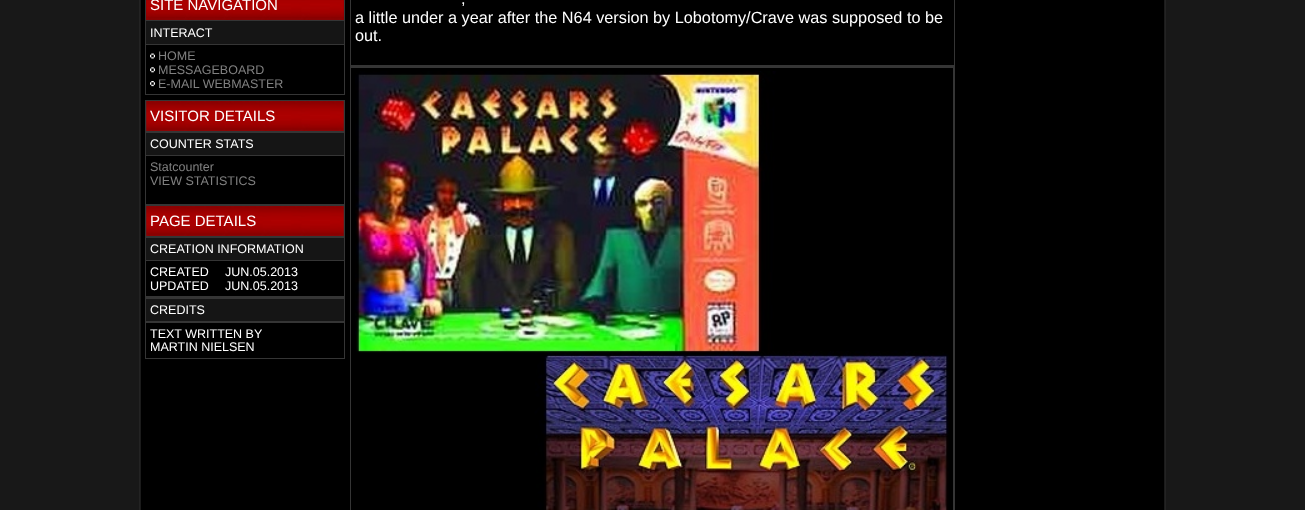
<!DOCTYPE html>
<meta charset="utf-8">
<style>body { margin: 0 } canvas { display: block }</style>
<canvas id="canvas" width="1305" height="510"></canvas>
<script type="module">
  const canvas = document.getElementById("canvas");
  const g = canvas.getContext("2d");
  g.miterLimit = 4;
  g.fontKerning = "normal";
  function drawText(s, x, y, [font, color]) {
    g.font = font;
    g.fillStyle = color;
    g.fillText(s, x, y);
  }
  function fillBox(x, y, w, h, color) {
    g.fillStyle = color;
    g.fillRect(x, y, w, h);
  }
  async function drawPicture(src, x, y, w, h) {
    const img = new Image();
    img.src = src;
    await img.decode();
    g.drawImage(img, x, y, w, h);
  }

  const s1 = ["15px Liberation Sans", "#FFFFFF"];
  const s2 = ["12.5px Liberation Sans", "#FFFFFF"];
  const s3 = ["12.5px Liberation Sans", "#808080"];
  const s4 = ["16.25px Liberation Sans", "#FFFFFF"];

  fillBox(0, 0, 1305, 510, "#181818");
  await drawPicture("pic1.png", 139, 0, 1027, 510);
  fillBox(141, 0, 1023, 510, "#000000");
  fillBox(145, 0, 200, 95, "#353535");
  fillBox(146, 0, 198, 20, "#800000");
  await drawPicture("pic2.png", 146, 0, 198, 20);
  drawText("SITE NAVIGATION", 150, 10, s1);
  fillBox(146, 21, 198, 23, "#151515");
  drawText("INTERACT", 150, 37, s2);
  fillBox(146, 45, 198, 49, "#000000");
  await drawPicture("pic3.png", 150, 53, 5, 6);
  drawText("HOME", 158, 60, s3);
  await drawPicture("pic4.png", 150, 67, 5, 6);
  drawText("MESSAGEBOARD", 158, 74, s3);
  await drawPicture("pic5.png", 150, 81, 5, 6);
  drawText("E-MAIL WEBMASTER", 158, 88, s3);
  fillBox(145, 100, 200, 259, "#353535");
  await drawPicture("pic6.png", 146, 101, 198, 30);
  drawText("VISITOR DETAILS", 150, 121, s1);
  fillBox(146, 133, 198, 22, "#151515");
  drawText("COUNTER STATS", 150, 148, s2);
  fillBox(146, 156, 198, 48, "#000000");
  drawText("Statcounter", 150, 171, s3);
  drawText("VIEW STATISTICS", 150, 185, s3);
  await drawPicture("pic7.png", 146, 206, 198, 30);
  drawText("PAGE DETAILS", 150, 226, s1);
  fillBox(146, 238, 198, 22, "#151515");
  drawText("CREATION INFORMATION", 150, 253, s2);
  fillBox(146, 261, 198, 35, "#000000");
  drawText("CREATED", 150, 276, s2);
  drawText("JUN.05.2013", 225, 276, s2);
  drawText("UPDATED", 150, 290, s2);
  drawText("JUN.05.2013", 225, 290, s2);
  fillBox(146, 299, 198, 22, "#151515");
  drawText("CREDITS", 150, 314, s2);
  fillBox(146, 323, 198, 35, "#000000");
  drawText("TEXT WRITTEN BY", 150, 338, s2);
  drawText("MARTIN NIELSEN", 150, 351, s2);
  fillBox(350, 0, 605, 510, "#353535");
  fillBox(351, 0, 603, 65, "#000000");
  drawText(",", 461, 4, s4);
  drawText("a little under a year after the N64 version by Lobotomy/Crave was supposed to be", 355, 23, s4);
  drawText("out.", 355, 41, s4);
  fillBox(351, 68, 602, 442, "#000000");
  await drawPicture("pic8.png", 355, 71, 594, 439);
</script>
